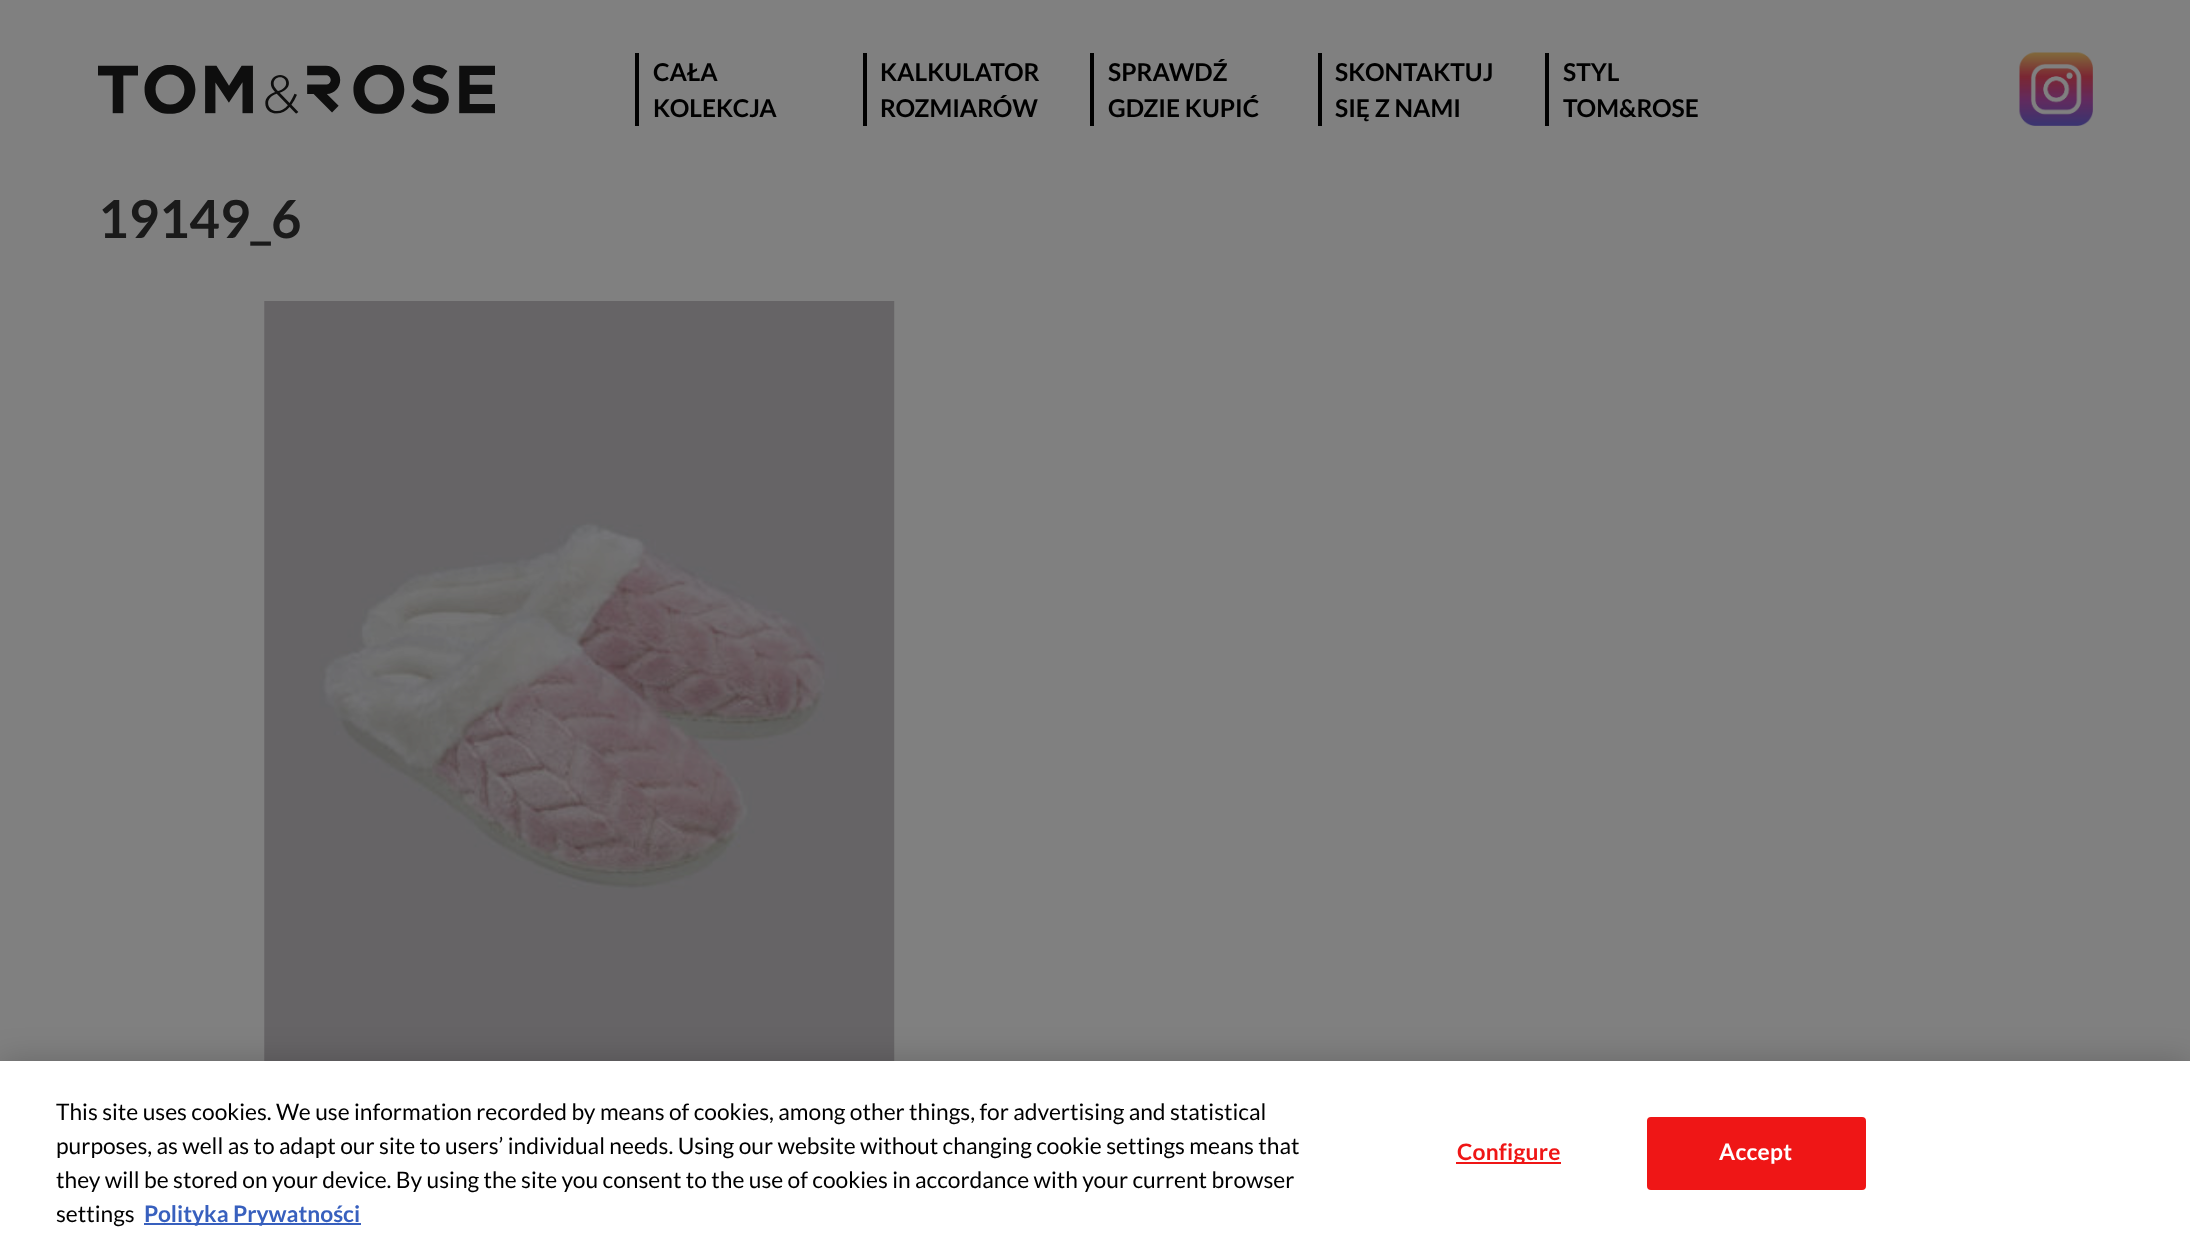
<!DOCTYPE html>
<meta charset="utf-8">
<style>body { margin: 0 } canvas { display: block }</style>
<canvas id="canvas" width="2190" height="1248"></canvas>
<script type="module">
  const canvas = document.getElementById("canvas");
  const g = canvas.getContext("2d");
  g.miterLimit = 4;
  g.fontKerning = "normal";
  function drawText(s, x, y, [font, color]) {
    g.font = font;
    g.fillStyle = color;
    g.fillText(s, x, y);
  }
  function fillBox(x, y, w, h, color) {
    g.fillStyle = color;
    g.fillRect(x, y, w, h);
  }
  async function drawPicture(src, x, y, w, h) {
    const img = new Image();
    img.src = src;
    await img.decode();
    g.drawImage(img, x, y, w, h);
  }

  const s1 = ["bold 24.5px Lato", "#000000"];
  const s2 = ["bold 52.5px Lato", "#1A1A1A"];
  const s3 = ["22.75px Lato", "#000000"];
  const s4 = ["bold 22.75px Lato", "#3860BE"];
  const s5 = ["bold 22.75px Lato", "#EF1616"];
  const s6 = ["bold 22.75px Lato", "#FFFFFF"];

  fillBox(0, 0, 2190, 1248, "#808080");
  await drawPicture("pic1.png", 98, 65, 397, 49);
  fillBox(635, 53, 4, 73, "#000000");
  drawText("CAŁA", 653, 81, s1);
  drawText("KOLEKCJA", 653, 117, s1);
  fillBox(863, 53, 4, 73, "#000000");
  drawText("KALKULATOR", 880, 81, s1);
  drawText("ROZMIARÓW", 880, 117, s1);
  fillBox(1090, 53, 4, 73, "#000000");
  drawText("SPRAWDŹ", 1108, 81, s1);
  drawText("GDZIE KUPIĆ", 1108, 117, s1);
  fillBox(1318, 53, 4, 73, "#000000");
  drawText("SKONTAKTUJ", 1335, 81, s1);
  drawText("SIĘ Z NAMI", 1335, 117, s1);
  fillBox(1545, 53, 4, 73, "#000000");
  drawText("STYL", 1563, 81, s1);
  drawText("TOM&ROSE", 1563, 117, s1);
  await drawPicture("pic2.png", 2019, 52, 74, 74);
  drawText("19149_6", 98, 238, s2);
  await drawPicture("pic3.png", 264, 301, 631, 760);
  g.fillStyle = "rgba(0, 0, 0, 0.2)";
  g.filter = "blur(16px)";
  g.beginPath();
  g.rect(0, 1061, 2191, 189);
  g.fill();
  g.filter = "none";
  fillBox(0, 1061, 2190, 187, "#FFFFFF");
  drawText("This site uses cookies. We use information recorded by means of cookies, among other things, for advertising and statistical", 56, 1120, s3);
  drawText("purposes, as well as to adapt our site to users’ individual needs. Using our website without changing cookie settings means that", 56, 1154, s3);
  drawText("they will be stored on your device. By using the site you consent to the use of cookies in accordance with your current browser", 56, 1188, s3);
  drawText("settings", 56, 1222, s3);
  fillBox(144, 1223, 217, 2, "#3860BE");
  drawText("Polityka Prywatności", 144, 1222, s4);
  fillBox(1456, 1162, 105, 2, "#EF1616");
  g.letterSpacing = "0.25px";
  drawText("Configure", 1457, 1160, s5);
  g.beginPath();
  g.roundRect(1648, 1118, 217, 71, 3);
  g.fill();
  g.strokeStyle = "#EF1616";
  g.lineWidth = 2;
  g.stroke();
  drawText("Accept", 1719, 1160, s6);
</script>
